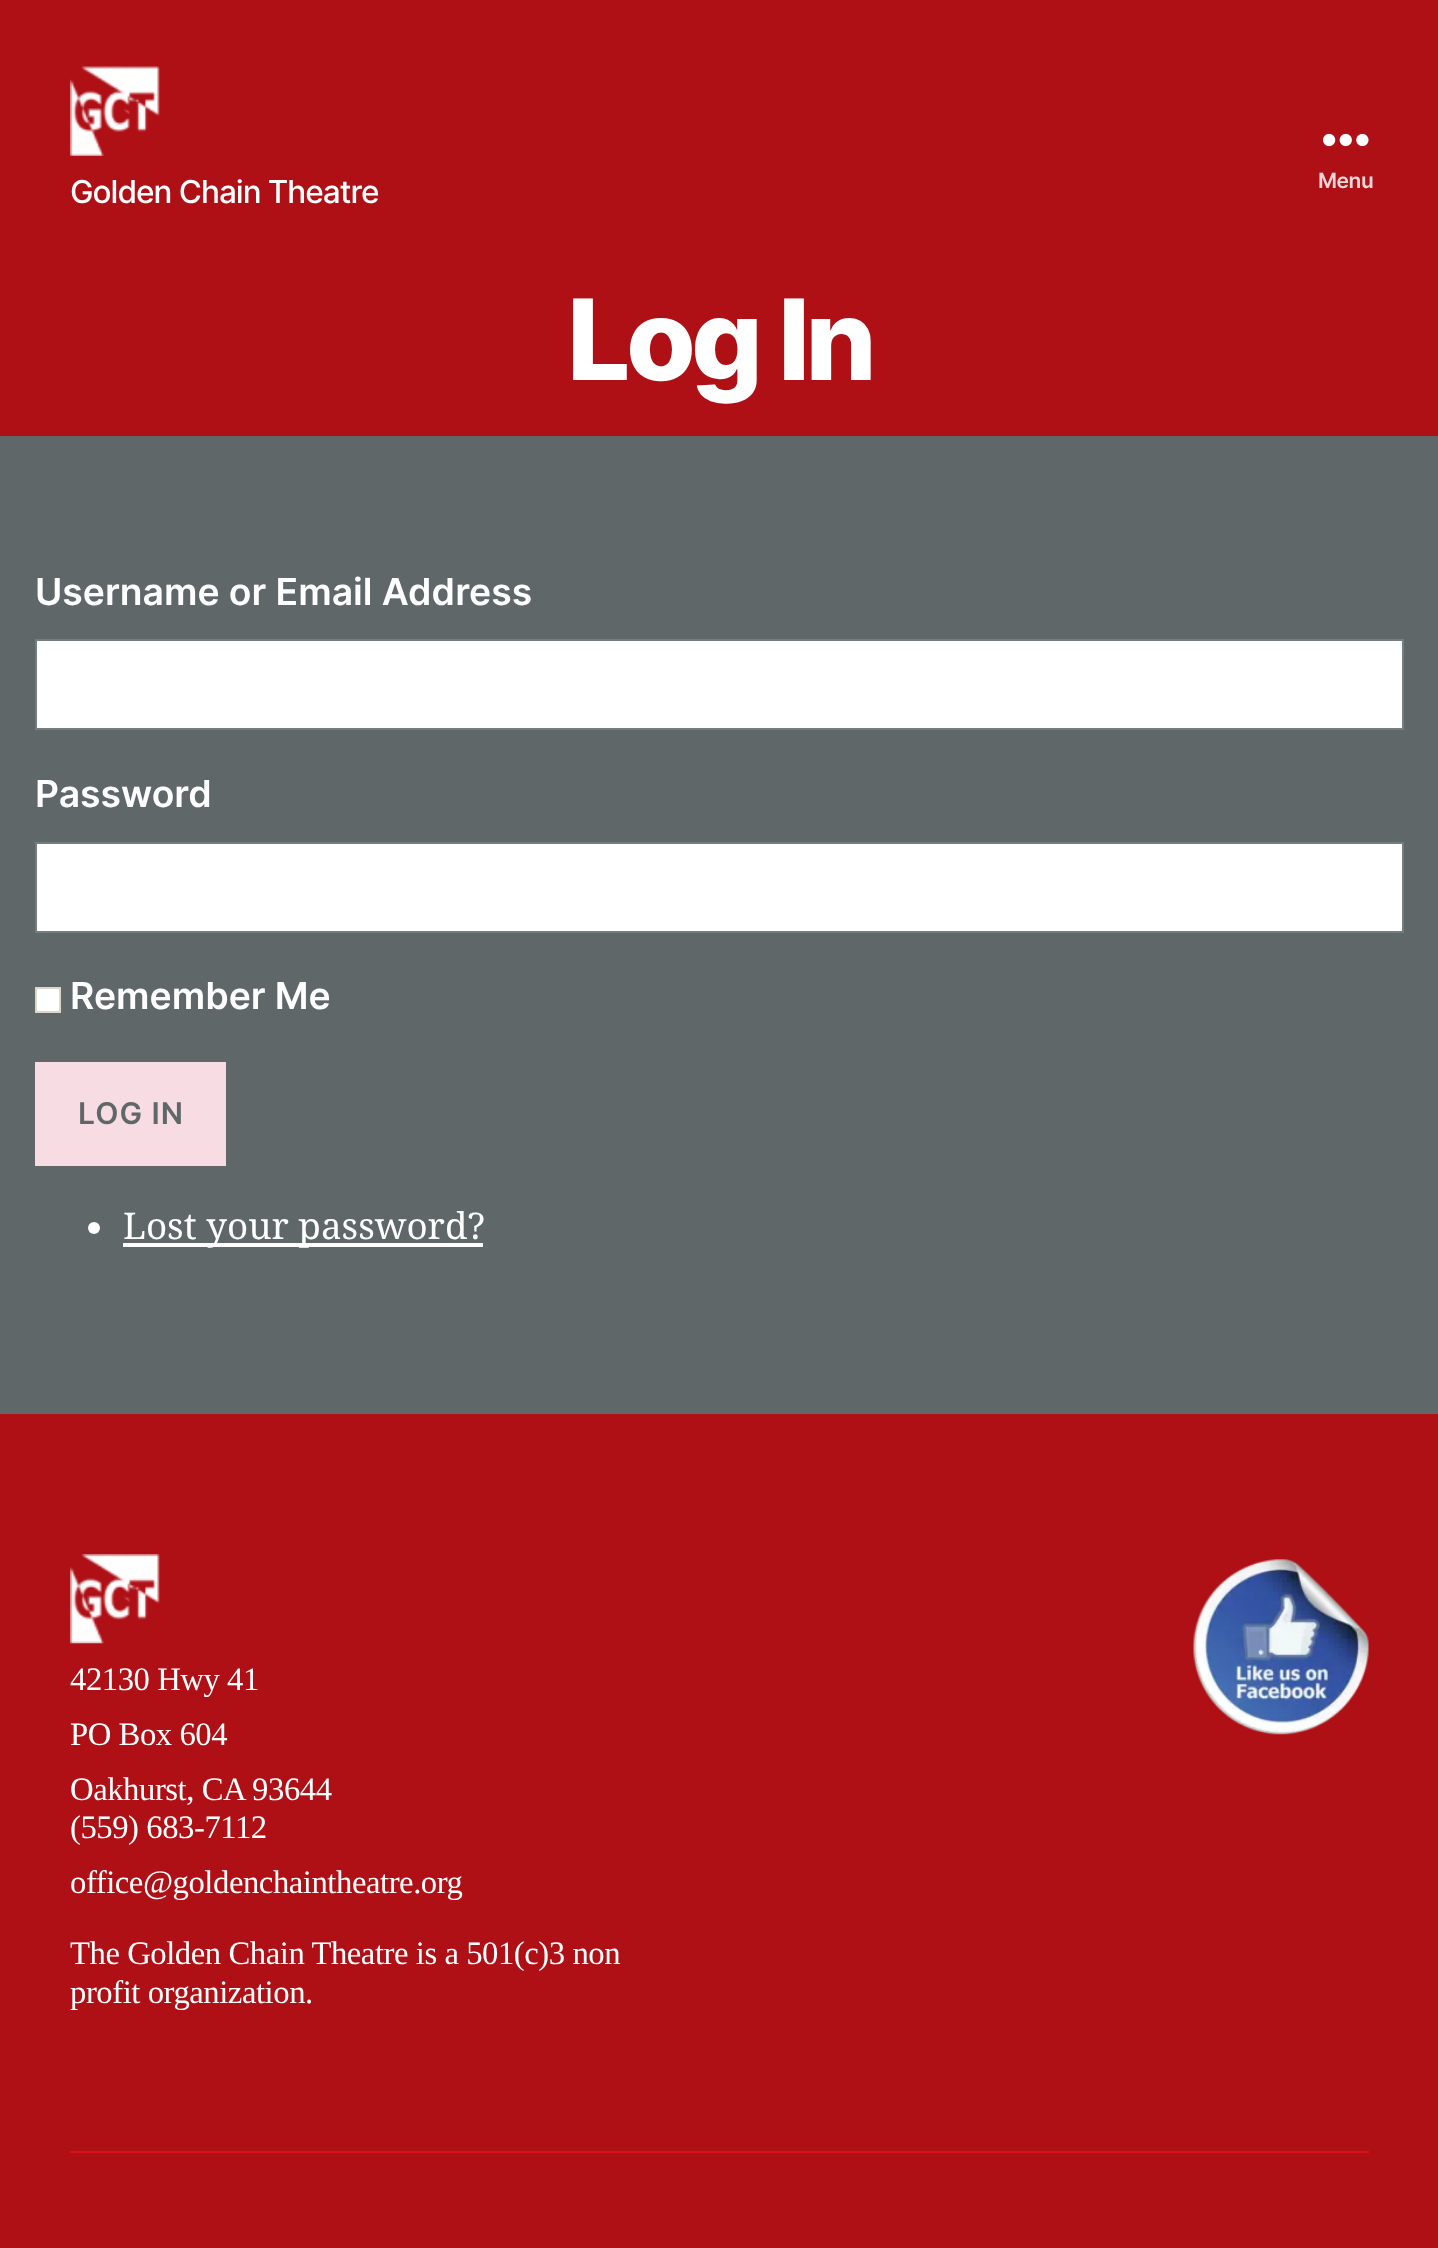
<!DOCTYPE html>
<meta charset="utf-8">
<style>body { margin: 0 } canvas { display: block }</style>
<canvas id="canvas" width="1438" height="2248"></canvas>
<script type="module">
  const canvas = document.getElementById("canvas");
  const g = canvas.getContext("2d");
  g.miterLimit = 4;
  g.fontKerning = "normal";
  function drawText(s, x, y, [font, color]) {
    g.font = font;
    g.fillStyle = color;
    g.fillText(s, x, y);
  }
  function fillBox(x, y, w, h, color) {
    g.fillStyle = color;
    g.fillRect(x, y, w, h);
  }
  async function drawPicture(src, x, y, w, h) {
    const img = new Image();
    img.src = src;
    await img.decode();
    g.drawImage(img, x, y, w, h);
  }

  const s1 = ["500 31.5px Inter", "#FFFFFF"];
  const s2 = ["600 21px Inter", "#EED7D8"];
  const s3 = ["800 112px Inter", "#FFFFFF"];
  const s4 = ["600 37.3px Inter", "#FFFFFF"];
  const s5 = ["600 30px Inter", "#5F6769"];
  const s6 = ["36.75px Noto Serif", "#FFFFFF"];
  const s7 = ["32.7px Liberation Serif", "#FFFFFF"];

  fillBox(0, 0, 1438, 2248, "#5F6769");
  fillBox(0, 0, 1438, 436, "#AF1016");
  await drawPicture("pic1.png", 70, 66, 90, 90);
  g.letterSpacing = "-1px";
  drawText("Golden Chain Theatre", 70, 203, s1);
  await drawPicture("pic2.png", 1323, 133, 46, 14);
  g.letterSpacing = "-0.45px";
  drawText("Menu", 1318, 188, s2);
  g.letterSpacing = "-4.5px";
  drawText("Log In", 567, 380, s3);
  g.letterSpacing = "0px";
  drawText("Username or Email Address", 35, 605, s4);
  g.beginPath();
  g.rect(36, 640, 1367, 89);
  g.fill();
  g.strokeStyle = "#747E80";
  g.lineWidth = 2;
  g.stroke();
  drawText("Password", 35, 807, s4);
  g.beginPath();
  g.rect(36, 843, 1367, 89);
  g.fill();
  g.stroke();
  g.beginPath();
  g.rect(36, 988, 24, 24);
  g.fill();
  g.strokeStyle = "#DCD7CA";
  g.stroke();
  drawText("Remember Me", 70, 1009, s4);
  fillBox(35, 1062, 191, 104, "#F7DDE3");
  g.letterSpacing = "1px";
  drawText("LOG IN", 78, 1124, s5);
  g.fillStyle = "#FFFFFF";
  g.beginPath();
  g.arc(94, 1228, 6, 0, Math.PI * 2);
  g.fill();
  fillBox(123, 1243, 360, 4, "#FFFFFF");
  g.letterSpacing = "0px";
  drawText("Lost your password?", 123, 1239, s6);
  fillBox(0, 1414, 1438, 834, "#AF1016");
  fillBox(70, 2151, 1299, 2, "#DA1017");
  await drawPicture("pic3.png", 1193, 1559, 176, 176);
  await drawPicture("pic4.png", 70, 1554, 90, 90);
  g.letterSpacing = "-0.45px";
  drawText("42130 Hwy 41", 70, 1690, s7);
  drawText("PO Box 604", 70, 1745, s7);
  drawText("Oakhurst, CA 93644", 70, 1800, s7);
  drawText("(559) 683-7112", 70, 1838, s7);
  drawText("office@goldenchaintheatre.org", 70, 1893, s7);
  drawText("The Golden Chain Theatre is a 501(c)3 non", 70, 1964, s7);
  drawText("profit organization.", 70, 2003, s7);
</script>
